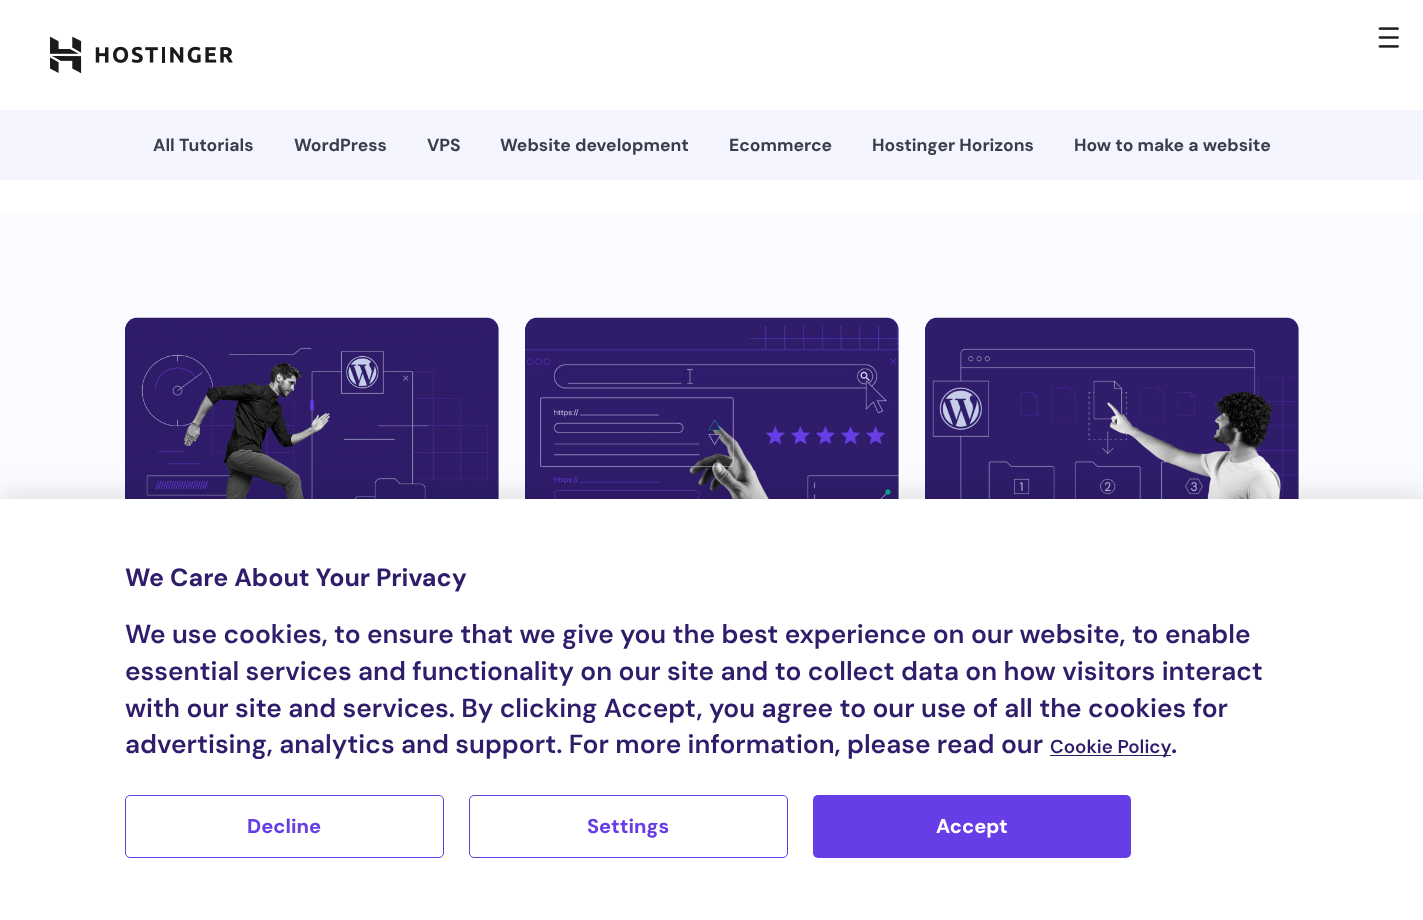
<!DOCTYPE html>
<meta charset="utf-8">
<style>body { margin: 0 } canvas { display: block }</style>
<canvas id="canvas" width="1423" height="920"></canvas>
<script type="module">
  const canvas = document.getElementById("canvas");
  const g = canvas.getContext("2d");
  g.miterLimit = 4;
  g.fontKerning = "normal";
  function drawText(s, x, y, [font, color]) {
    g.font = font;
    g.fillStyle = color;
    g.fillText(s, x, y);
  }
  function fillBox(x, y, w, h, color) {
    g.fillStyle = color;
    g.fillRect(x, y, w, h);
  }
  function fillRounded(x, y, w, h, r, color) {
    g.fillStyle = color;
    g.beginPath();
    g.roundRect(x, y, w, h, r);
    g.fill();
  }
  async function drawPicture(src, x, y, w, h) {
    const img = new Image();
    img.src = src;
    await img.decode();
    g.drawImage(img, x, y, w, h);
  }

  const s1 = ["bold 17.5px DM Sans", "#3B3D4A"];
  const s2 = ["bold 25px DM Sans", "#2F1C6A"];
  const s3 = ["600 26.25px DM Sans", "#2F1C6A"];
  const s4 = ["600 18.75px DM Sans", "#2F1C6A"];
  const s5 = ["800 20px DM Sans", "#673DE6"];
  const s6 = ["800 20px DM Sans", "#FFFFFF"];

  fillBox(0, 0, 1423, 920, "#FFFFFF");
  await drawPicture("pic1.png", 50, 36, 183, 38);
  await drawPicture("pic2.png", 1378, 27, 21, 21);
  fillBox(0, 110, 1423, 70, "#F4F5FF");
  drawText("All Tutorials", 153, 151, s1);
  drawText("WordPress", 294, 151, s1);
  drawText("VPS", 427, 151, s1);
  drawText("Website development", 500, 151, s1);
  drawText("Ecommerce", 729, 151, s1);
  drawText("Hostinger Horizons", 872, 151, s1);
  drawText("How to make a website", 1074, 151, s1);
  fillBox(0, 213, 1423, 286, "#FAFBFF");
  await drawPicture("pic3.png", 125, 317, 374, 182);
  await drawPicture("pic4.png", 525, 317, 374, 182);
  await drawPicture("pic5.png", 925, 317, 374, 182);
  g.fillStyle = "rgba(0, 0, 0, 0.1)";
  g.filter = "blur(12.5px)";
  g.beginPath();
  g.rect(0, 493, 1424, 421);
  g.fill();
  g.filter = "none";
  fillBox(0, 499, 1423, 421, "#FFFFFF");
  drawText("We Care About Your Privacy", 125, 586, s2);
  drawText("We use cookies, to ensure that we give you the best experience on our website, to enable", 125, 643, s3);
  drawText("essential services and functionality on our site and to collect data on how visitors interact", 125, 680, s3);
  drawText("with our site and services. By clicking Accept, you agree to our use of all the cookies for", 125, 717, s3);
  drawText("advertising, analytics and support. For more information, please read our", 125, 753, s3);
  fillBox(1050, 755, 121, 1, "#2F1C6A");
  drawText("Cookie Policy", 1050, 753, s4);
  drawText(".", 1171, 753, s3);
  g.beginPath();
  g.roundRect(125.5, 795.5, 318, 62, 4.5);
  g.strokeStyle = "#673DE6";
  g.stroke();
  drawText("Decline", 247, 833, s5);
  g.beginPath();
  g.roundRect(469.5, 795.5, 318, 62, 4.5);
  g.stroke();
  drawText("Settings", 587, 833, s5);
  fillRounded(813, 795, 318, 63, 5, "#673DE6");
  drawText("Accept", 936, 833, s6);
</script>
